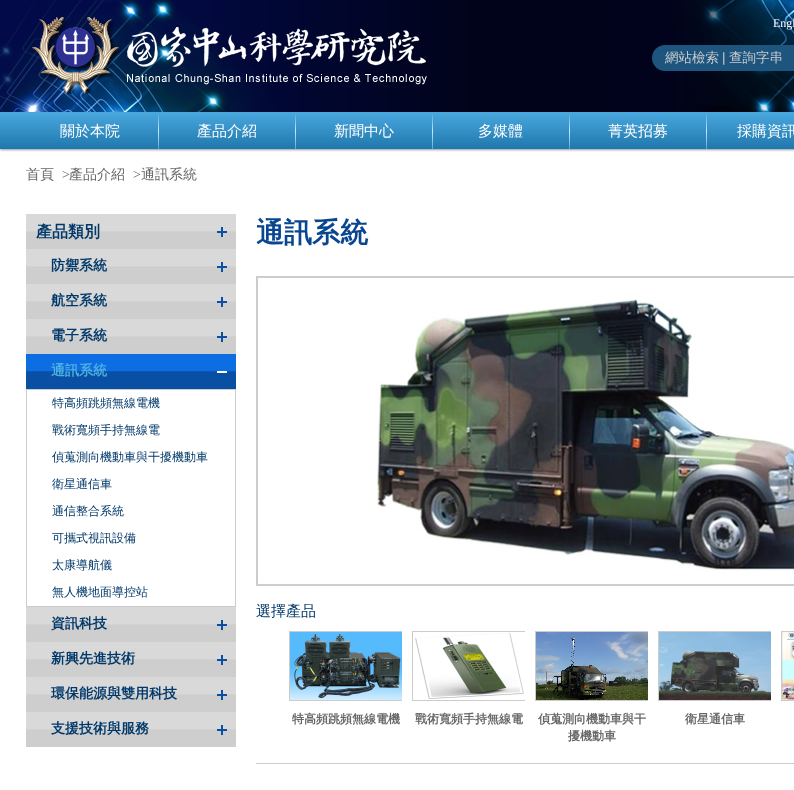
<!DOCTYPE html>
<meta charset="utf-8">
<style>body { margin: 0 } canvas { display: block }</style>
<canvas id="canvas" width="794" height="790"></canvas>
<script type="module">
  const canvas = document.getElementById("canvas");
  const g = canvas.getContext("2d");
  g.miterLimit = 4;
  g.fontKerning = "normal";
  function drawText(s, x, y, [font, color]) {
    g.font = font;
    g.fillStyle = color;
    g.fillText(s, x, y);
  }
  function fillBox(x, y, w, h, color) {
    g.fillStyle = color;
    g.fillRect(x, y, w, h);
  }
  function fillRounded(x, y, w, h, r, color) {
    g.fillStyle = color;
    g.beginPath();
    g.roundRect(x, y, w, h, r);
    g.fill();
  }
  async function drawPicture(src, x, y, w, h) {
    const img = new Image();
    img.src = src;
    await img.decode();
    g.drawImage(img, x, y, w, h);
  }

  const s1 = ["12px Liberation Serif", "#FFFFFF"];
  const s2 = ["500 13.5px WenQuanYi Zen Hei", "#CCCCCC"];
  const s3 = ["13.5px Liberation Sans", "#CCCCCC"];
  const s4 = ["500 15px WenQuanYi Zen Hei", "#FFFFFF"];
  const s5 = ["500 14px WenQuanYi Zen Hei", "#666666"];
  const s6 = ["14px Liberation Serif", "#666666"];
  const s7 = ["bold 16px WenQuanYi Zen Hei", "#003869"];
  const s8 = ["bold 14px WenQuanYi Zen Hei", "#003869"];
  const s9 = ["bold 14px WenQuanYi Zen Hei", "#4EB0E0"];
  const s10 = ["500 12px WenQuanYi Zen Hei", "#003869"];
  const s11 = ["bold 28px WenQuanYi Zen Hei", "#084690"];
  const s12 = ["500 15px WenQuanYi Zen Hei", "#003869"];
  const s13 = ["bold 12px WenQuanYi Zen Hei", "#666666"];

  fillBox(0, 0, 794, 790, "#FFFFFF");
  g.fillStyle = "rgba(51, 51, 51, 0.5)";
  g.filter = "blur(1px)";
  g.beginPath();
  g.rect(0, 113, 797, 37);
  g.fill();
  g.filter = "none";
  await drawPicture("pic1.png", 0, 0, 794, 112);
  await drawPicture("pic2.png", 32, 17, 395, 77);
  drawText("Engl", 773, 27, s1);
  fillRounded(652, 45, 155, 26, 13, "#1D557E");
  drawText("網站檢索", 665, 62, s2);
  drawText("|", 722, 62, s3);
  drawText("查詢字串", 729, 62, s2);
  await drawPicture("pic12.png", 0, 112, 794, 37);
  drawText("關於本院", 60, 136, s4);
  await drawPicture("pic3.png", 158, 113, 1, 36);
  drawText("產品介紹", 197, 136, s4);
  await drawPicture("pic3.png", 295, 113, 1, 36);
  drawText("新聞中心", 334, 136, s4);
  await drawPicture("pic3.png", 432, 113, 1, 36);
  drawText("多媒體", 478, 136, s4);
  await drawPicture("pic3.png", 569, 113, 1, 36);
  drawText("菁英招募", 608, 136, s4);
  await drawPicture("pic3.png", 706, 113, 1, 36);
  drawText("採購資訊", 737, 136, s4);
  drawText("首頁", 26, 179, s5);
  drawText(">", 62, 179, s6);
  drawText("產品介紹", 69, 179, s5);
  drawText(">", 133, 179, s6);
  drawText("通訊系統", 141, 179, s5);
  await drawPicture("pic4.png", 26, 214, 210, 35);
  drawText("產品類別", 36, 237, s7);
  await drawPicture("pic4.png", 26, 249, 210, 35);
  drawText("防禦系統", 51, 270, s8);
  await drawPicture("pic4.png", 26, 284, 210, 35);
  drawText("航空系統", 51, 305, s8);
  await drawPicture("pic4.png", 26, 319, 210, 35);
  drawText("電子系統", 51, 340, s8);
  await drawPicture("pic5.png", 26, 354, 210, 35);
  drawText("通訊系統", 51, 375, s9);
  g.strokeStyle = "#CCCCCC";
  g.strokeRect(26.5, 389.5, 209, 217);
  drawText("特高頻跳頻無線電機", 52, 407, s10);
  drawText("戰術寬頻手持無線電", 52, 434, s10);
  drawText("偵蒐測向機動車與干擾機動車", 52, 461, s10);
  drawText("衛星通信車", 52, 488, s10);
  drawText("通信整合系統", 52, 515, s10);
  drawText("可攜式視訊設備", 52, 542, s10);
  drawText("太康導航儀", 52, 569, s10);
  drawText("無人機地面導控站", 52, 596, s10);
  await drawPicture("pic4.png", 26, 607, 210, 35);
  drawText("資訊科技", 51, 628, s8);
  await drawPicture("pic4.png", 26, 642, 210, 35);
  drawText("新興先進技術", 51, 663, s8);
  await drawPicture("pic4.png", 26, 677, 210, 35);
  drawText("環保能源與雙用科技", 51, 698, s8);
  await drawPicture("pic4.png", 26, 712, 210, 35);
  drawText("支援技術與服務", 51, 733, s8);
  drawText("通訊系統", 256, 242, s11);
  g.strokeRect(256.5, 276.5, 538, 309);
  await drawPicture("pic6.png", 257, 277, 537, 308);
  drawText("選擇產品", 256, 616, s12);
  g.strokeRect(781.5, 631.5, 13, 69);
  await drawPicture("pic7.png", 782, 632, 12, 68);
  g.save();
  g.beginPath();
  g.rect(289, 631, 113, 122);
  g.clip();
  g.strokeRect(289.5, 631.5, 114, 69);
  g.restore();
  await drawPicture("pic8.png", 290, 632, 112, 68);
  drawText("特高頻跳頻無線電機", 292, 723, s13);
  g.save();
  g.beginPath();
  g.rect(412, 631, 113, 122);
  g.clip();
  g.strokeRect(412.5, 631.5, 114, 69);
  g.restore();
  await drawPicture("pic9.png", 415, 633, 109, 66);
  drawText("戰術寬頻手持無線電", 415, 723, s13);
  g.save();
  g.beginPath();
  g.rect(535, 631, 113, 122);
  g.clip();
  g.strokeRect(535.5, 631.5, 114, 69);
  g.restore();
  await drawPicture("pic10.png", 536, 632, 112, 68);
  drawText("偵蒐測向機動車與干", 538, 723, s13);
  drawText("擾機動車", 568, 740, s13);
  g.save();
  g.beginPath();
  g.rect(658, 631, 113, 122);
  g.clip();
  g.strokeRect(658.5, 631.5, 114, 69);
  g.restore();
  await drawPicture("pic11.png", 659, 632, 112, 68);
  drawText("衛星通信車", 685, 723, s13);
  fillBox(256, 763, 538, 1, "#CCCCCC");
</script>
